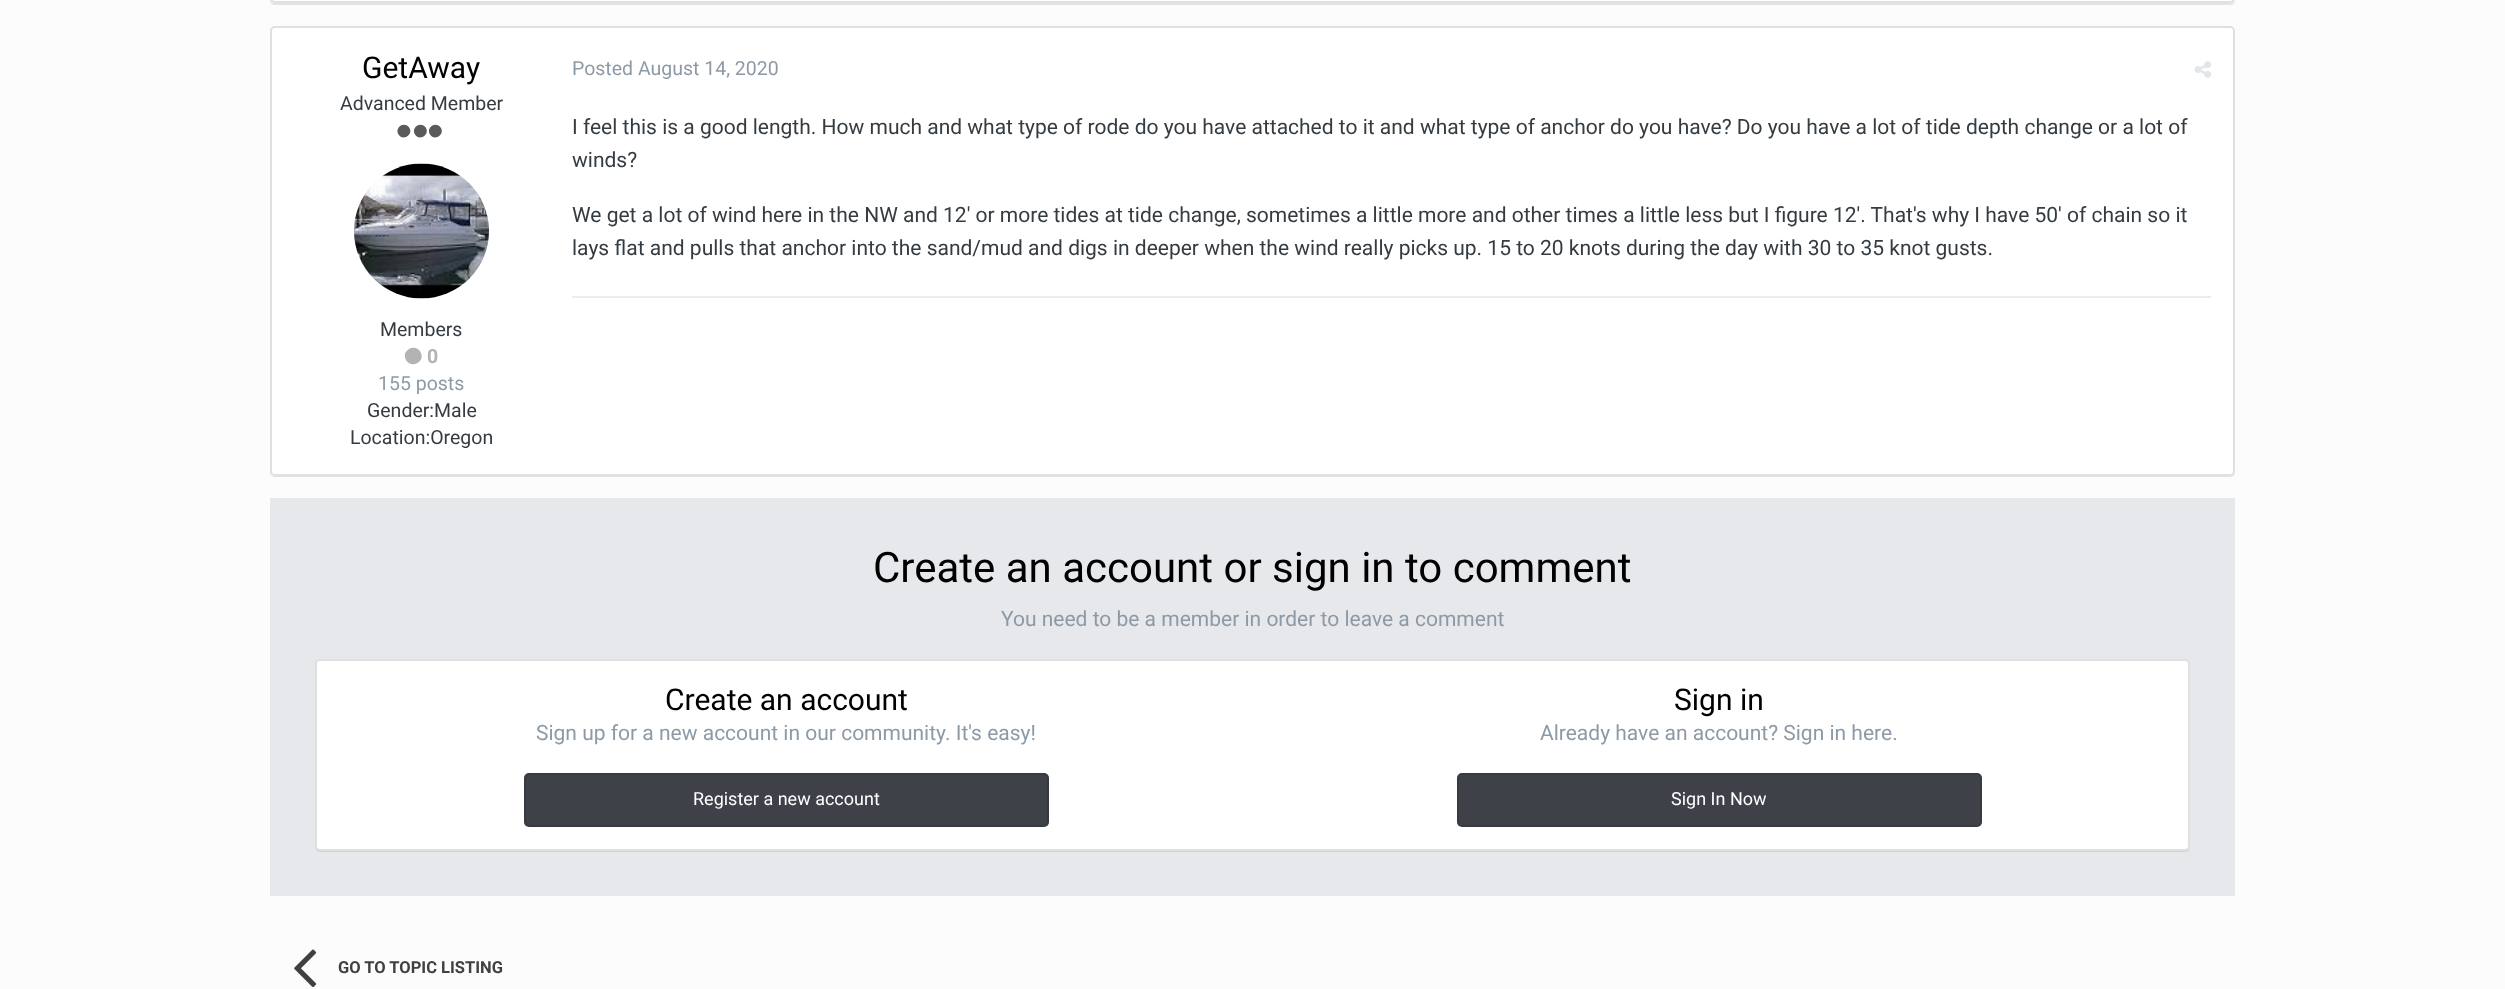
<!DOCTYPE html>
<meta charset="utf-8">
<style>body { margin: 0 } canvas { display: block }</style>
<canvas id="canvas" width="2505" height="989"></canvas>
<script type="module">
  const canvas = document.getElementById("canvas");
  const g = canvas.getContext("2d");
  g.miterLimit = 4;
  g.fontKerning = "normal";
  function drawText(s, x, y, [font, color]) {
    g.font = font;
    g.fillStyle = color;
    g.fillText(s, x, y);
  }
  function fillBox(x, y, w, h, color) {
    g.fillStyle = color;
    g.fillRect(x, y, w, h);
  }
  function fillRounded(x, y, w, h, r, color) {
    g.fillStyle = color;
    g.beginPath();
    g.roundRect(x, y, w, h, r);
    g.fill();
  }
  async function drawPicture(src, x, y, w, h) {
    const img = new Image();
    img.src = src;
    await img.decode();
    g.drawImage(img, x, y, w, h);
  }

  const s1 = ["30px Roboto", "#000000"];
  const s2 = ["19.5px Roboto", "#353C41"];
  const s3 = ["bold 19.5px Roboto", "#B3B3B3"];
  const s4 = ["19.5px Roboto", "#8D9AA6"];
  const s5 = ["21px Roboto", "#353C41"];
  const s6 = ["42px Roboto", "#000000"];
  const s7 = ["21px Roboto", "#8D9AA6"];
  const s8 = ["18px Roboto", "#FFFFFF"];
  const s9 = ["bold 16.5px Roboto", "#404040"];

  fillBox(0, 0, 2505, 989, "#FCFCFC");
  g.fillStyle = "#E3E3E3";
  g.beginPath();
  g.moveTo(270, -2);
  g.lineTo(270, 0);
  g.bezierCurveTo(270, 3, 272, 5, 275, 5);
  g.lineTo(2230, 5);
  g.bezierCurveTo(2233, 5, 2235, 3, 2235, 0);
  g.lineTo(2235, -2);
  g.bezierCurveTo(2235, 1, 2233, 3, 2230, 3);
  g.lineTo(274, 3);
  g.bezierCurveTo(272, 3, 270, 1, 270, -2);
  g.closePath();
  g.fill();
  g.fillStyle = "#FFFFFF";
  g.beginPath();
  g.roundRect(271, -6, 1963, 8, 4);
  g.fill();
  g.strokeStyle = "#E0E0E0";
  g.lineWidth = 2;
  g.stroke();
  g.fillStyle = "#E3E3E3";
  g.beginPath();
  g.moveTo(270, 471);
  g.lineTo(270, 472);
  g.bezierCurveTo(270, 475, 272, 477, 275, 477);
  g.lineTo(2230, 477);
  g.bezierCurveTo(2233, 477, 2235, 475, 2235, 472);
  g.lineTo(2235, 471);
  g.bezierCurveTo(2235, 473, 2233, 476, 2230, 476);
  g.lineTo(274, 476);
  g.bezierCurveTo(272, 476, 270, 473, 270, 471);
  g.closePath();
  g.fill();
  g.fillStyle = "#FFFFFF";
  g.beginPath();
  g.roundRect(271, 27, 1963, 448, 4);
  g.fill();
  g.stroke();
  drawText("GetAway", 362, 78, s1);
  drawText("Advanced Member", 340, 110, s2);
  g.fillStyle = "#5A5A5A";
  g.beginPath();
  g.moveTo(409.5, 128);
  g.bezierCurveTo(413.5, 135, 402.5, 141.5, 398.5, 134.5);
  g.bezierCurveTo(394, 127, 405, 120.5, 409.5, 128);
  g.closePath();
  g.moveTo(426, 128);
  g.bezierCurveTo(430, 135, 419, 141.5, 415, 134.5);
  g.bezierCurveTo(410.5, 127, 421.5, 120.5, 426, 128);
  g.closePath();
  g.moveTo(441, 128);
  g.bezierCurveTo(445, 135, 434, 141.5, 430, 134.5);
  g.bezierCurveTo(425.5, 127, 436.5, 120.5, 441, 128);
  g.closePath();
  g.fill();
  await drawPicture("pic1.png", 354, 163, 135, 136);
  drawText("Members", 380, 336, s2);
  g.fillStyle = "#B3B3B3";
  g.beginPath();
  g.moveTo(420.5, 352);
  g.bezierCurveTo(426, 361.5, 411.5, 369.5, 406, 360);
  g.bezierCurveTo(400.5, 351, 415, 342.5, 420.5, 352);
  g.closePath();
  g.fill();
  drawText("0", 427, 363, s3);
  drawText("155 posts", 378, 390, s4);
  drawText("Gender:Male", 367, 417, s2);
  drawText("Location:Oregon", 350, 444, s2);
  drawText("Posted August 14, 2020", 572, 75, s4);
  await drawPicture("pic2.png", 2194, 61, 18, 17);
  drawText("I feel this is a good length. How much and what type of rode do you have attached to it and what type of anchor do you have? Do you have a lot of tide depth change or a lot of", 572, 134, s5);
  drawText("winds?", 572, 167, s5);
  drawText("We get a lot of wind here in the NW and 12' or more tides at tide change, sometimes a little more and other times a little less but I figure 12'. That's why I have 50' of chain so it", 572, 222, s5);
  drawText("lays flat and pulls that anchor into the sand/mud and digs in deeper when the wind really picks up. 15 to 20 knots during the day with 30 to 35 knot gusts.", 572, 255, s5);
  fillBox(572, 296, 1639, 2, "#ECECEC");
  fillBox(270, 498, 1965, 398, "#E6E8EB");
  drawText("Create an account or sign in to comment", 873, 582, s6);
  drawText("You need to be a member in order to leave a comment", 1001, 626, s7);
  g.fillStyle = "#CFD1D4";
  g.beginPath();
  g.moveTo(315, 846);
  g.bezierCurveTo(315, 849, 317, 852, 320, 852);
  g.lineTo(2185, 852);
  g.bezierCurveTo(2188, 852, 2190, 849, 2190, 846);
  g.bezierCurveTo(2190, 848, 2188, 850, 2186, 850);
  g.lineTo(320, 850);
  g.bezierCurveTo(317, 850, 315, 848, 315, 846);
  g.closePath();
  g.fill();
  g.fillStyle = "#FFFFFF";
  g.beginPath();
  g.roundRect(316, 660, 1873, 190, 4);
  g.fill();
  g.stroke();
  drawText("Create an account", 665, 710, s1);
  drawText("Sign up for a new account in our community. It's easy!", 536, 740, s7);
  fillRounded(524, 773, 525, 54, 5, "#3E4148");
  g.beginPath();
  g.roundRect(525, 774, 523, 52, 4);
  g.strokeStyle = "rgba(0, 0, 0, 0.1)";
  g.stroke();
  drawText("Register a new account", 693, 805, s8);
  drawText("Sign in", 1674, 710, s1);
  drawText("Already have an account? Sign in here.", 1540, 740, s7);
  fillRounded(1457, 773, 525, 54, 5, "#3E4148");
  g.beginPath();
  g.roundRect(1458, 774, 523, 52, 4);
  g.stroke();
  drawText("Sign In Now", 1671, 805, s8);
  await drawPicture("pic3.png", 294, 949, 23, 39);
  drawText("GO TO TOPIC LISTING", 338, 973, s9);
</script>
